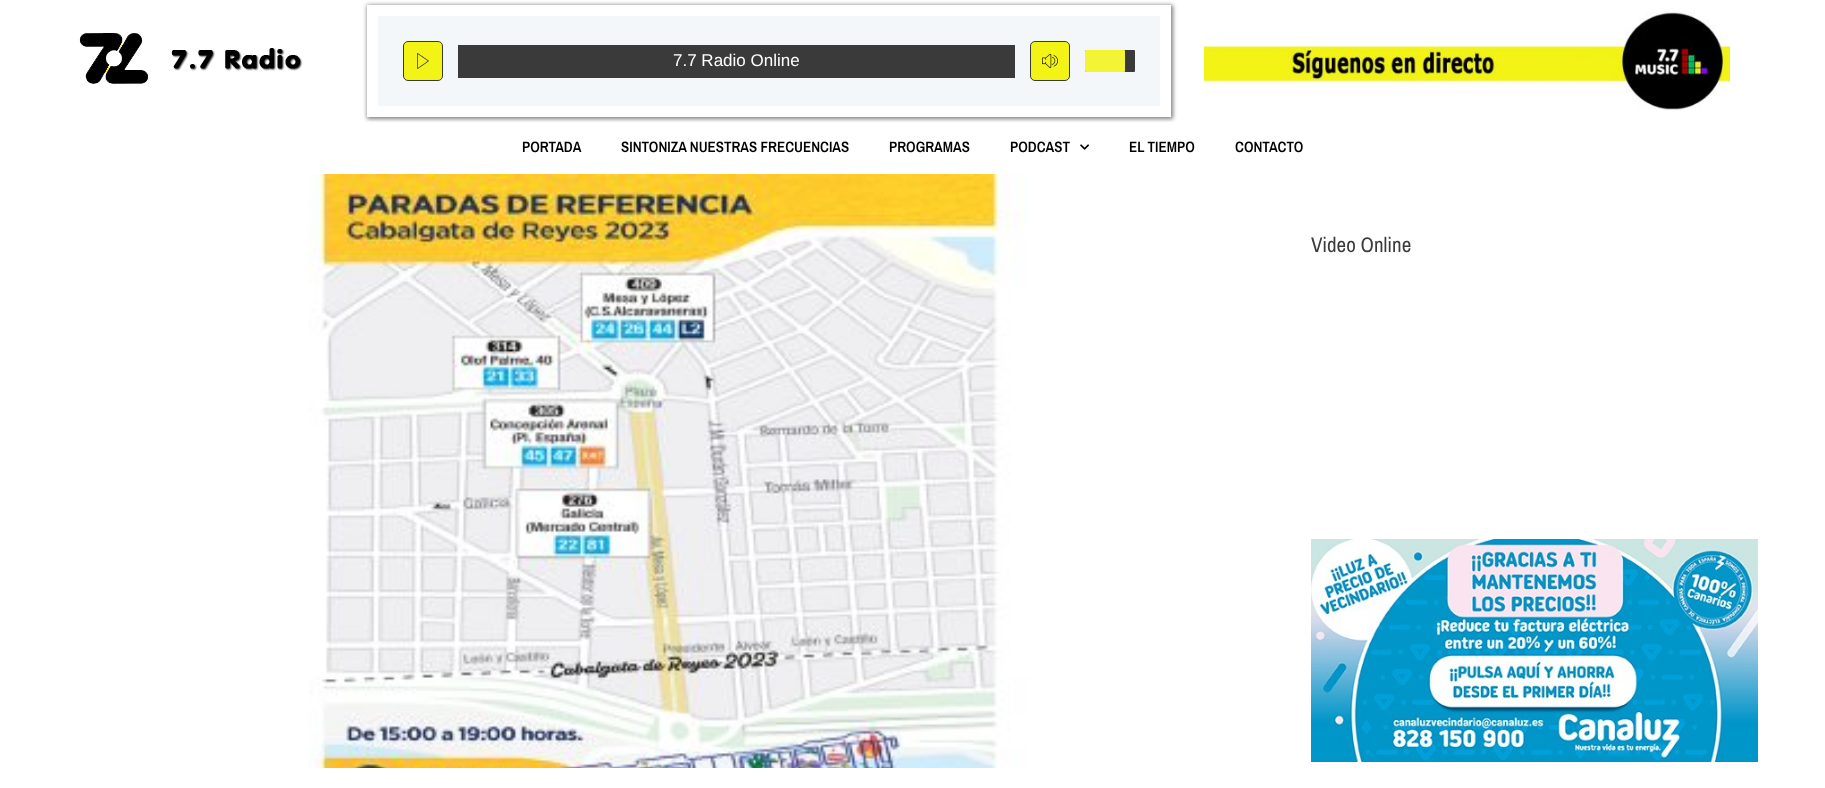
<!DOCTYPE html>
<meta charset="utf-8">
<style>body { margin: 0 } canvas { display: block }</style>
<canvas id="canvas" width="1825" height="788"></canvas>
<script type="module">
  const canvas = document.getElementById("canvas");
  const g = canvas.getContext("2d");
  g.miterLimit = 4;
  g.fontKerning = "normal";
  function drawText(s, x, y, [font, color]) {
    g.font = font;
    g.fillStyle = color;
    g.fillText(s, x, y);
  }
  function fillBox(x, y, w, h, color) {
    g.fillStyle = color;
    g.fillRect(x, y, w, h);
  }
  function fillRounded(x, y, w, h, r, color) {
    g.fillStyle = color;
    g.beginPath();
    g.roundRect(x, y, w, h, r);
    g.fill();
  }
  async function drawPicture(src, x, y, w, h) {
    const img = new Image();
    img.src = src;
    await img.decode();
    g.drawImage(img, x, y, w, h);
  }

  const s1 = ["17px Liberation Sans", "#FFFFFF"];
  const s2 = ["600 15px Archivo Narrow", "#000000"];
  const s3 = ["21px Archivo Narrow", "#3A3A3A"];

  fillBox(0, 0, 1825, 788, "#FFFFFF");
  await drawPicture("pic1.png", 79, 33, 224, 51);
  g.save();
  g.beginPath();
  g.moveTo(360, 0);
  g.lineTo(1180, 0);
  g.lineTo(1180, 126);
  g.lineTo(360, 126);
  g.closePath();
  g.moveTo(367, 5);
  g.lineTo(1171, 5);
  g.lineTo(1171, 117);
  g.lineTo(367, 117);
  g.closePath();
  g.clip("evenodd");
  g.fillStyle = "rgba(0, 0, 0, 0.5)";
  g.filter = "blur(2px)";
  g.beginPath();
  g.rect(367, 5, 806, 114);
  g.fill();
  g.filter = "none";
  g.restore();
  fillBox(378, 16, 782, 90, "#F4F7F9");
  g.fillStyle = "#F3F315";
  g.beginPath();
  g.roundRect(403.5, 41.5, 39, 39, 4.5);
  g.fill();
  g.strokeStyle = "#3A3A3A";
  g.stroke();
  await drawPicture("pic2.png", 417, 53, 12, 16);
  fillBox(458, 45, 557, 33, "#3A3A3A");
  drawText("7.7 Radio Online", 673, 66, s1);
  g.fillStyle = "#F3F315";
  g.beginPath();
  g.roundRect(1030.5, 41.5, 39, 39, 4.5);
  g.fill();
  g.stroke();
  await drawPicture("pic3.png", 1042, 53, 16, 15);
  fillRounded(1085, 50, 50, 22, 1, "#3A3A3A");
  fillRounded(1085, 50, 40, 22, 1, "#F3F315");
  fillBox(1085, 50, 40, 22, "rgba(255, 255, 255, 0.15)");
  await drawPicture("pic4.png", 1204, 11, 526, 100);
  fillBox(367, 122, 806, 1, "#FFFFFF");
  drawText("PORTADA", 522, 152, s2);
  drawText("SINTONIZA NUESTRAS FRECUENCIAS", 621, 152, s2);
  drawText("PROGRAMAS", 889, 152, s2);
  drawText("PODCAST", 1010, 152, s2);
  await drawPicture("pic5.png", 1080, 144, 9, 6);
  drawText("EL TIEMPO", 1129, 152, s2);
  drawText("CONTACTO", 1235, 152, s2);
  await drawPicture("pic6.png", 308, 174, 721, 594);
  drawText("Video Online", 1311, 252, s3);
  await drawPicture("pic7.png", 1311, 539, 447, 223);
</script>
